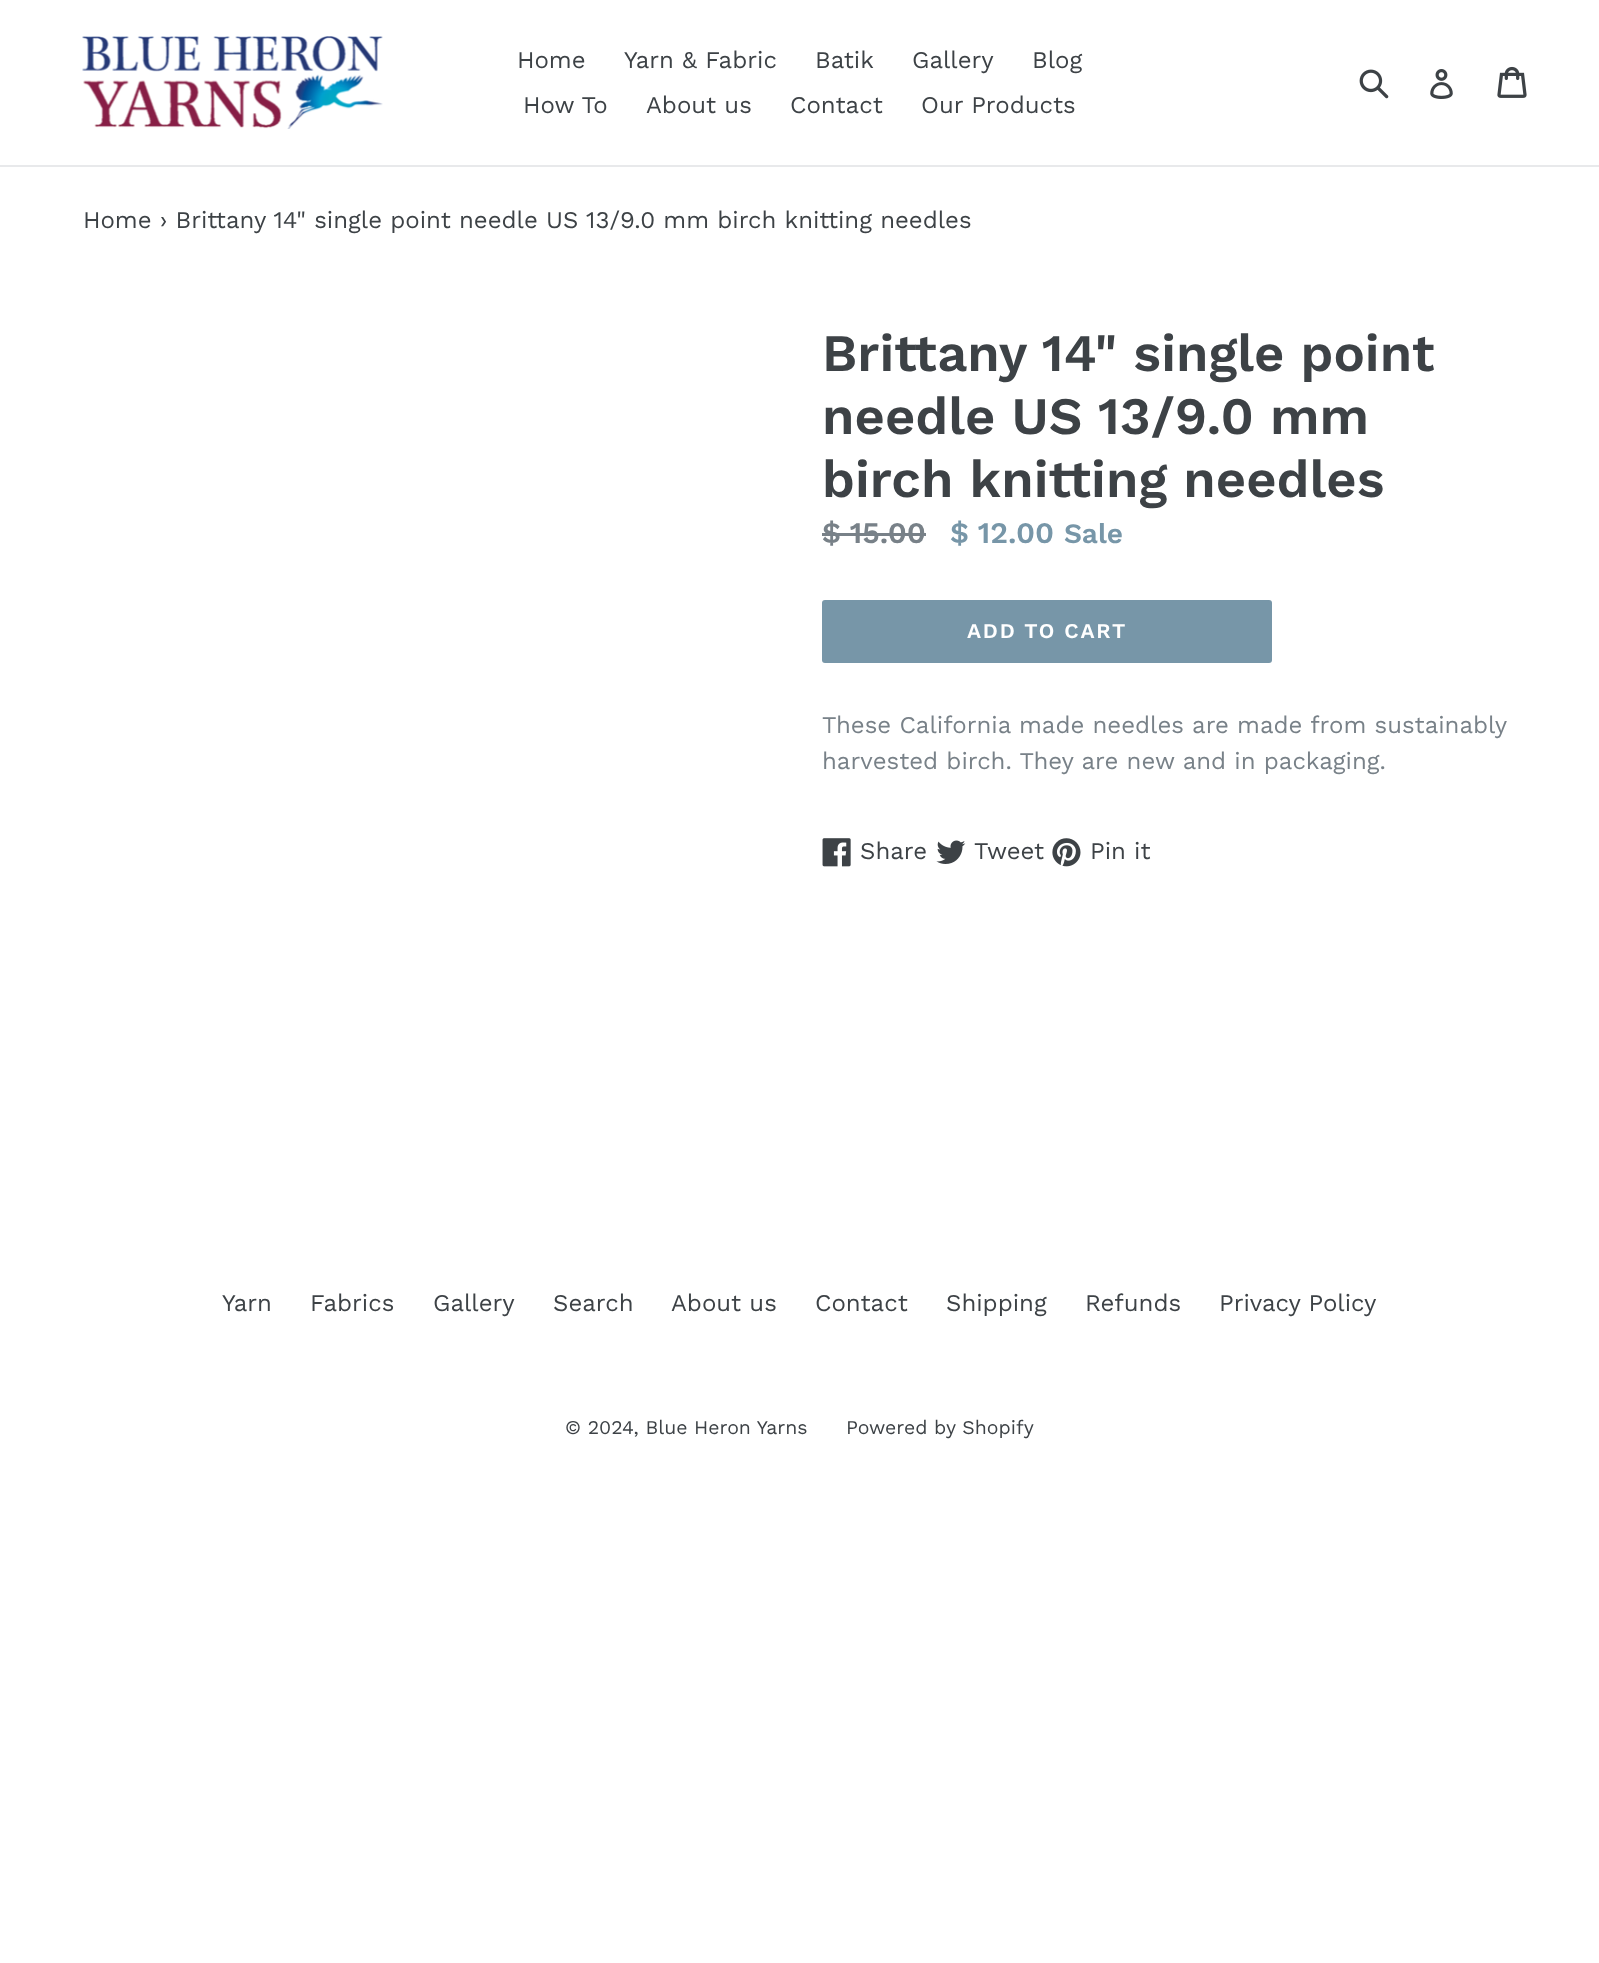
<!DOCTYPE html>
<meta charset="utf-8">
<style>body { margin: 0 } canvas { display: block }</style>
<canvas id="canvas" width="1599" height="1963"></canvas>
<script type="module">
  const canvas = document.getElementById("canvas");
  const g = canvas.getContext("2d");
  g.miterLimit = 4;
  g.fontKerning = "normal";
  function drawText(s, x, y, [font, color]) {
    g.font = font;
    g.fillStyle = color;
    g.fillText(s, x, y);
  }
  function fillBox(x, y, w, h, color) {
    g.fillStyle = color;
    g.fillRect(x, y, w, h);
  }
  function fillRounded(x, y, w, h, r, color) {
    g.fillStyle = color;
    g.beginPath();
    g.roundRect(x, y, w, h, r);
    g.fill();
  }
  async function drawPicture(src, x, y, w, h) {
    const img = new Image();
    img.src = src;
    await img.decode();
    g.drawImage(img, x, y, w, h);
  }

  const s1 = ["24px Work Sans", "#3D4246"];
  const s2 = ["600 52.5px Work Sans", "#3D4246"];
  const s3 = ["600 30px Work Sans", "#788188"];
  const s4 = ["600 30px Work Sans", "#7796A8"];
  const s5 = ["600 28px Work Sans", "#7796A8"];
  const s6 = ["600 21px Work Sans", "#FFFFFF"];
  const s7 = ["24px Work Sans", "#788188"];
  const s8 = ["19.5px Work Sans", "#3D4246"];

  fillBox(0, 0, 1599, 1963, "#FFFFFF");
  fillBox(0, 165, 1599, 2, "#E8E9EB");
  await drawPicture("pic1.png", 82, 36, 301, 93);
  drawText("Home", 517, 68, s1);
  drawText("Yarn & Fabric", 624, 68, s1);
  drawText("Batik", 815, 68, s1);
  drawText("Gallery", 912, 68, s1);
  drawText("Blog", 1032, 68, s1);
  drawText("How To", 523, 113, s1);
  drawText("About us", 646, 113, s1);
  drawText("Contact", 790, 113, s1);
  drawText("Our Products", 921, 113, s1);
  await drawPicture("pic2.png", 1359, 69, 30, 30);
  await drawPicture("pic3.png", 1430, 69, 23, 30);
  await drawPicture("pic4.png", 1497, 66, 30, 32);
  drawText("Home › Brittany 14\" single point needle US 13/9.0 mm birch knitting needles", 83, 228, s1);
  drawText("Brittany 14\" single point", 822, 371, s2);
  drawText("needle US 13/9.0 mm", 822, 434, s2);
  drawText("birch knitting needles", 822, 497, s2);
  drawText("$ 15.00", 822, 543, s3);
  fillBox(822, 533, 104, 3, "#788188");
  drawText("$ 12.00", 950, 543, s4);
  drawText("Sale", 1064, 543, s5);
  fillRounded(822, 600, 450, 63, 3, "#7796A8");
  g.letterSpacing = "1.75px";
  drawText("ADD TO CART", 967, 638, s6);
  g.letterSpacing = "0px";
  drawText("These California made needles are made from sustainably", 822, 733, s7);
  drawText("harvested birch. They are new and in packaging.", 822, 769, s7);
  await drawPicture("pic5.png", 822, 838, 29, 29);
  drawText("Share", 860, 859, s1);
  await drawPicture("pic6.png", 936, 840, 30, 24);
  drawText("Tweet", 974, 859, s1);
  await drawPicture("pic7.png", 1052, 838, 29, 29);
  drawText("Pin it", 1090, 859, s1);
  drawText("Yarn", 222, 1311, s1);
  drawText("Fabrics", 310, 1311, s1);
  drawText("Gallery", 433, 1311, s1);
  drawText("Search", 553, 1311, s1);
  drawText("About us", 671, 1311, s1);
  drawText("Contact", 815, 1311, s1);
  drawText("Shipping", 946, 1311, s1);
  drawText("Refunds", 1085, 1311, s1);
  drawText("Privacy Policy", 1219, 1311, s1);
  drawText("© 2024, Blue Heron Yarns", 565, 1434, s8);
  drawText("Powered by Shopify", 846, 1434, s8);
</script>
